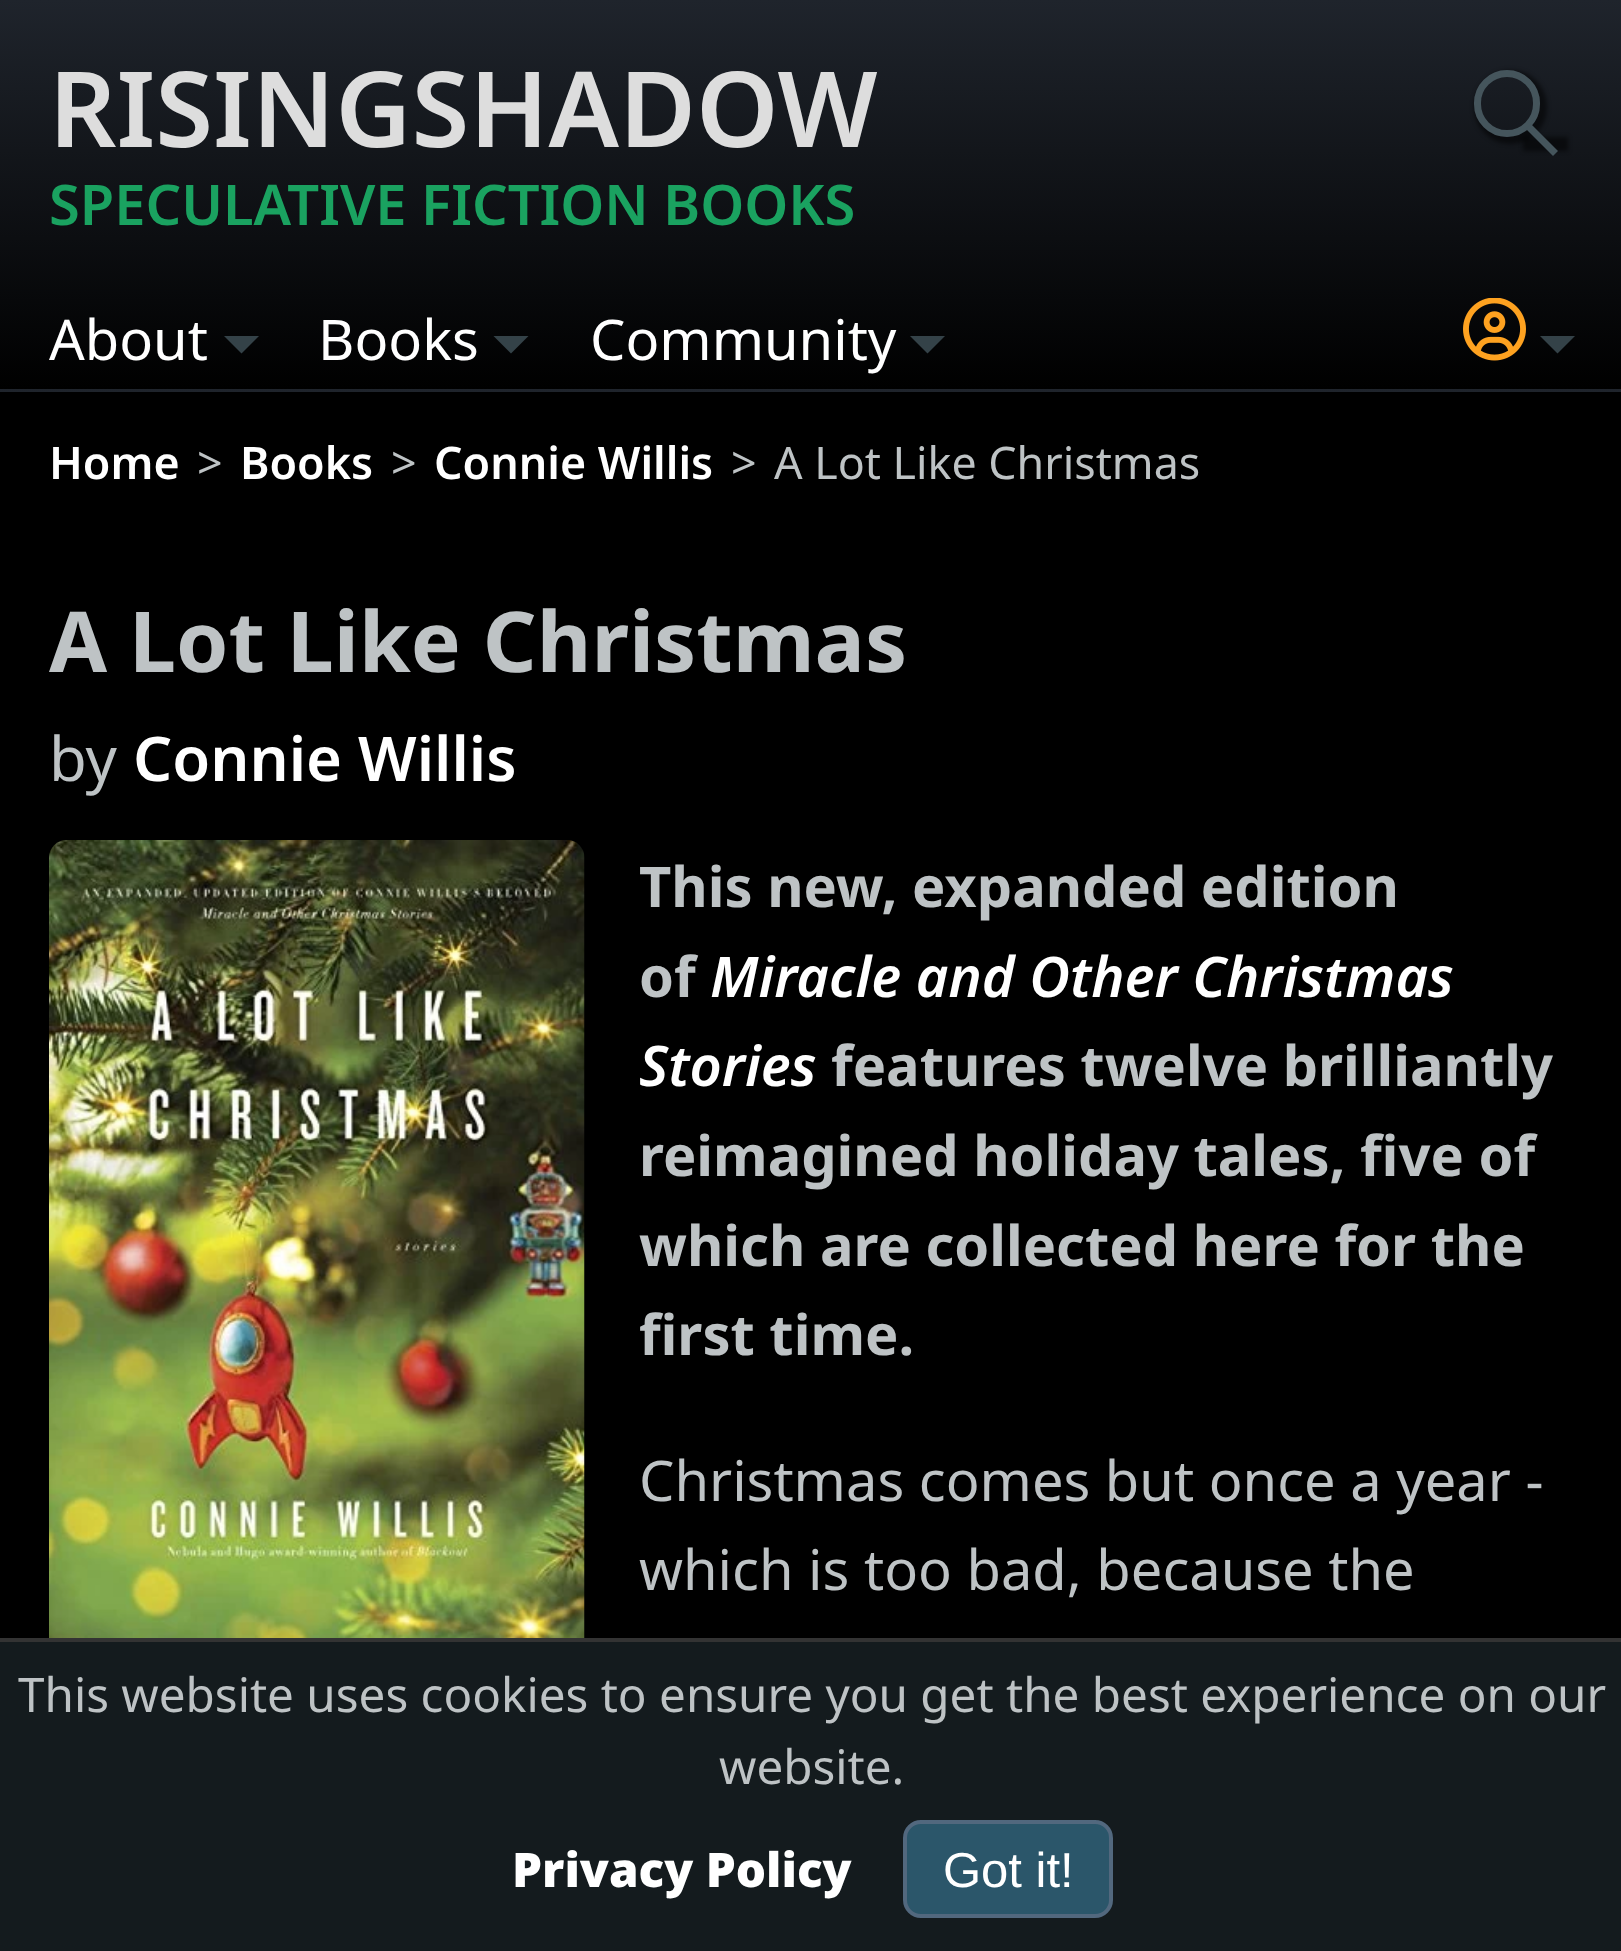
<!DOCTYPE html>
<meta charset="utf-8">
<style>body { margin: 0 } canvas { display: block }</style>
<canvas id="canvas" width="1621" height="1951"></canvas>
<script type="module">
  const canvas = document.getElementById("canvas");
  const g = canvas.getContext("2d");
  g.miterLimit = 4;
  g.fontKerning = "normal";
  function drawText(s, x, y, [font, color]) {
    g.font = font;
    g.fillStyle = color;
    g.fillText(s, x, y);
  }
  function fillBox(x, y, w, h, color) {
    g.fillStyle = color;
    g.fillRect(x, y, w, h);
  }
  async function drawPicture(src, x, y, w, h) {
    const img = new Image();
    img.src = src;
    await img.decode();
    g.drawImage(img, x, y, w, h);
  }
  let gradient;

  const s1 = ["600 105px Noto Sans", "#DDDDDD"];
  const s2 = ["600 56px Noto Sans", "#1AA260"];
  const s3 = ["56px Noto Sans", "#FFFFFF"];
  const s4 = ["600 44.75px Noto Sans", "#FFFFFF"];
  const s5 = ["44.75px Noto Sans", "#BEC3C5"];
  const s6 = ["bold 84px Noto Sans", "#BEC3C5"];
  const s7 = ["61.5px Noto Sans", "#BEC3C5"];
  const s8 = ["600 61.5px Noto Sans", "#FFFFFF"];
  const s9 = ["bold 56px Noto Sans", "#BEC3C5"];
  const s10 = ["italic 600 56px Noto Sans", "#FFFFFF"];
  const s11 = ["56px Noto Sans", "#BEC3C5"];
  const s12 = ["47.6px Noto Sans", "#BEC3C5"];
  const s13 = ["900 47.6px Noto Sans", "#FFFFFF"];
  const s14 = ["49px Liberation Sans", "#FFFFFF"];

  fillBox(0, 0, 1621, 1951, "#FFFFFF");
  gradient = g.createLinearGradient(812, 0, 812, 389);
  gradient.addColorStop(0, "#1F242C");
  gradient.addColorStop(1, "#000000");
  g.fillStyle = gradient;
  g.fillRect(0, 0, 1621, 389);
  gradient = g.createLinearGradient(812, 388, 812, 777);
  gradient.addColorStop(0, "#1F242C");
  gradient.addColorStop(1, "#000000");
  g.fillStyle = gradient;
  g.fillRect(0, 389, 1621, 3);
  drawText("RISINGSHADOW", 49, 147, s1);
  drawText("SPECULATIVE FICTION BOOKS", 49, 225, s2);
  g.save();
  g.beginPath();
  g.moveTo(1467, 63);
  g.lineTo(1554, 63);
  g.lineTo(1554, 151);
  g.lineTo(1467, 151);
  g.closePath();
  g.moveTo(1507, 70);
  g.bezierCurveTo(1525, 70, 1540, 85, 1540, 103);
  g.lineTo(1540, 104);
  g.bezierCurveTo(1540, 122, 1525, 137, 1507, 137);
  g.bezierCurveTo(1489, 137, 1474, 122, 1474, 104);
  g.lineTo(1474, 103);
  g.bezierCurveTo(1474, 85, 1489, 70, 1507, 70);
  g.closePath();
  g.clip("evenodd");
  g.fillStyle = "rgba(0, 0, 0, 0.5)";
  g.filter = "blur(2px)";
  g.beginPath();
  g.roundRect(1474, 70, 73, 74, 36.5);
  g.fill();
  g.filter = "none";
  g.restore();
  g.beginPath();
  g.roundRect(1477.5, 73.5, 59, 60, 29.5);
  g.strokeStyle = "#45555C";
  g.lineWidth = 7;
  g.stroke();
  g.fillStyle = "rgba(0, 0, 0, 0.5)";
  g.filter = "blur(2px)";
  g.beginPath();
  g.rect(1523, 137, 45, 14);
  g.fill();
  g.filter = "none";
  g.fillStyle = "#45555C";
  g.beginPath();
  g.moveTo(1531, 124);
  g.lineTo(1558, 151);
  g.lineTo(1553, 156);
  g.lineTo(1526, 129);
  g.closePath();
  g.fill();
  drawText("About", 49, 360, s3);
  g.fillStyle = "#344248";
  g.beginPath();
  g.moveTo(224, 336);
  g.lineTo(259, 336);
  g.lineTo(241.5, 353.5);
  g.closePath();
  g.fill();
  drawText("Books", 318, 360, s3);
  g.fillStyle = "#344248";
  g.beginPath();
  g.moveTo(493.5, 336);
  g.lineTo(528.5, 336);
  g.lineTo(511, 353.5);
  g.closePath();
  g.fill();
  drawText("Community", 590, 360, s3);
  g.fillStyle = "#344248";
  g.beginPath();
  g.moveTo(910, 336);
  g.lineTo(945, 336);
  g.lineTo(927.5, 353.5);
  g.closePath();
  g.fill();
  await drawPicture("pic1.png", 1463, 298, 63, 63);
  g.beginPath();
  g.moveTo(1540, 336);
  g.lineTo(1575, 336);
  g.lineTo(1557.5, 353.5);
  g.closePath();
  g.fill();
  fillBox(0, 392, 1621, 1246, "#000000");
  drawText("Home", 49, 479, s4);
  drawText(">", 197, 479, s5);
  drawText("Books", 240, 479, s4);
  drawText(">", 391, 479, s5);
  drawText("Connie Willis", 434, 479, s4);
  drawText(">", 731, 479, s5);
  drawText("A Lot Like Christmas", 774, 479, s5);
  drawText("A Lot Like Christmas", 49, 672, s6);
  drawText("by", 49, 781, s7);
  drawText("Connie Willis", 133, 781, s8);
  await drawPicture("pic2.png", 49, 840, 536, 798);
  drawText("This new, expanded edition", 639, 907, s9);
  drawText("of", 639, 997, s9);
  drawText("Miracle and Other Christmas", 710, 997, s10);
  drawText("Stories", 639, 1086, s10);
  drawText("features twelve brilliantly", 831, 1086, s9);
  drawText("reimagined holiday tales, five of", 639, 1176, s9);
  drawText("which are collected here for the", 639, 1266, s9);
  drawText("first time.", 639, 1355, s9);
  drawText("Christmas comes but once a year -", 639, 1501, s11);
  drawText("which is too bad, because the", 639, 1590, s11);
  fillBox(0, 1642, 1621, 309, "#141B1E");
  fillBox(0, 1638, 1621, 4, "#333333");
  drawText("This website uses cookies to ensure you get the best experience on our", 18, 1712, s12);
  drawText("website.", 719, 1784, s12);
  drawText("Privacy Policy", 512, 1887, s13);
  g.fillStyle = "#2B566A";
  g.beginPath();
  g.roundRect(905, 1822, 206, 94, 16);
  g.fill();
  g.strokeStyle = "#52687E";
  g.lineWidth = 4;
  g.stroke();
  drawText("Got it!", 943, 1887, s14);
</script>
